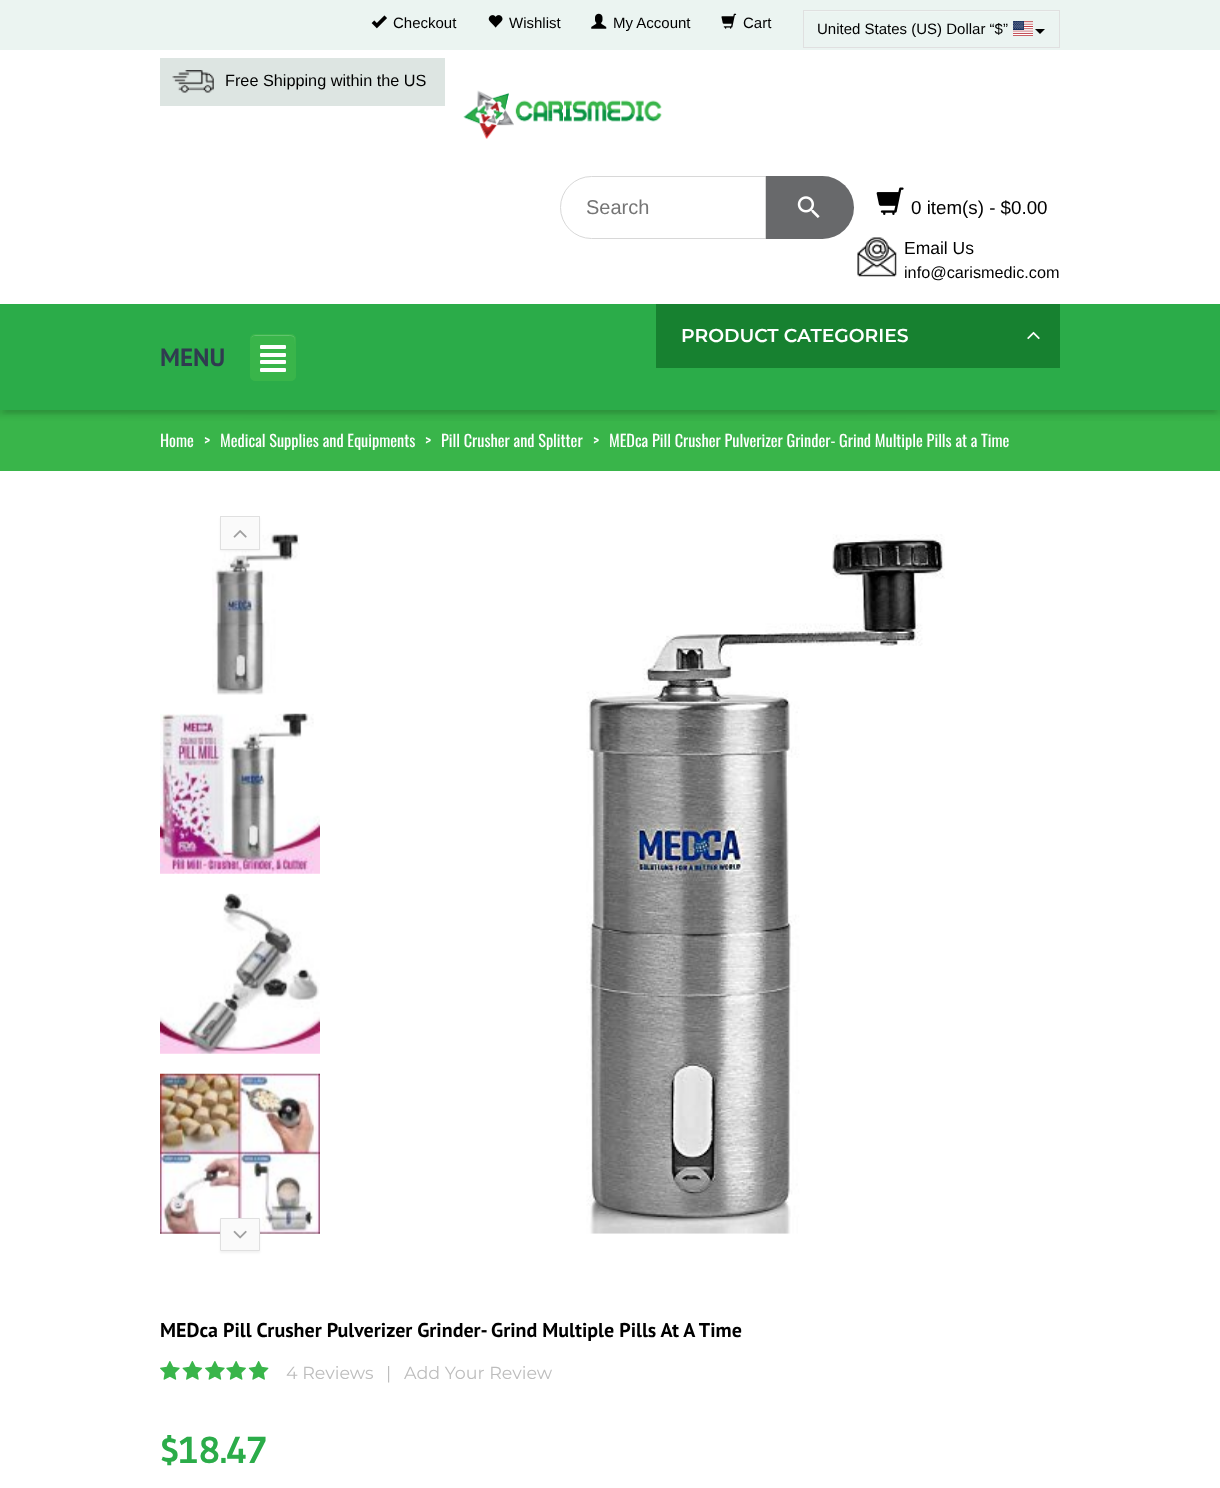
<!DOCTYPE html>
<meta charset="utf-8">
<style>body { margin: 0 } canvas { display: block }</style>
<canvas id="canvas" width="1220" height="1488"></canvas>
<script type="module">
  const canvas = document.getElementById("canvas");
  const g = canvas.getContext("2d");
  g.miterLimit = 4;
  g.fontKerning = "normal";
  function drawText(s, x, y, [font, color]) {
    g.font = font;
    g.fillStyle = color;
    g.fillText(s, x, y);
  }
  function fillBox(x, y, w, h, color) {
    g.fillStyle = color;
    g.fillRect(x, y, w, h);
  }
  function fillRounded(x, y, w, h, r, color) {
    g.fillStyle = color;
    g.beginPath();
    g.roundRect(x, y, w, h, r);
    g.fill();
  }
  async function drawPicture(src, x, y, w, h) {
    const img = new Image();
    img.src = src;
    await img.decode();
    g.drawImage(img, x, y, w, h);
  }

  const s1 = ["15px Liberation Sans", "#000000"];
  const s2 = ["16.25px Liberation Sans", "#000000"];
  const s3 = ["20px Liberation Sans", "#757575"];
  const s4 = ["18.75px Liberation Sans", "#000000"];
  const s5 = ["17.5px Liberation Sans", "#000000"];
  const s6 = ["600 18.75px Montserrat", "#FFFFFF"];
  const s7 = ["bold 25px PT Sans", "#303B50"];
  const s8 = ["16.25px Oswald", "#FFFFFF"];
  const s9 = ["bold 20px PT Sans", "#000000"];
  const s10 = ["17.5px Montserrat", "#BDBDBD"];
  const s11 = ["bold 37.5px Gudea", "#2BAC49"];

  fillBox(0, 0, 1220, 1488, "#FFFFFF");
  fillBox(0, 410, 1220, 61, "#39B54A");
  g.save();
  g.beginPath();
  g.rect(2, 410, 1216, 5);
  g.clip();
  g.fillStyle = "rgba(0, 0, 0, 0.1)";
  g.filter = "blur(2px)";
  g.beginPath();
  g.rect(4, 10, 1212, 403);
  g.fill();
  g.filter = "none";
  g.restore();
  fillBox(0, 0, 1220, 50, "#EBF4F1");
  await drawPicture("pic1.png", 371, 15, 16, 14);
  drawText("Checkout", 393, 28, s1);
  await drawPicture("pic2.png", 488, 15, 15, 13);
  drawText("Wishlist", 509, 28, s1);
  await drawPicture("pic3.png", 591, 13, 16, 16);
  drawText("My Account", 613, 28, s1);
  await drawPicture("pic4.png", 721, 13, 16, 16);
  drawText("Cart", 743, 28, s1);
  fillBox(804, 11, 255, 1, "#EFF6F4");
  g.strokeStyle = "#E0E0E0";
  g.strokeRect(803.5, 10.5, 256, 37);
  drawText("United States (US) Dollar “$”", 817, 34, s1);
  await drawPicture("pic5.png", 1013, 21, 20, 15);
  g.beginPath();
  g.moveTo(1035, 29);
  g.lineTo(1045, 29);
  g.lineTo(1040, 34);
  g.closePath();
  g.fill();
  fillBox(160, 58, 285, 48, "#DDE5E2");
  await drawPicture("pic6.png", 172, 70, 42, 23);
  drawText("Free Shipping within the US", 225, 86, s2);
  await drawPicture("pic7.png", 463, 90, 199, 49);
  g.fillStyle = "#68696B";
  g.beginPath();
  g.roundRect(765, 176, 89, 63, [0, 31.5, 31.5, 0]);
  g.fill();
  g.fillStyle = "#FFFFFF";
  g.beginPath();
  g.roundRect(560.5, 176.5, 205, 62, [31, 0, 0, 31]);
  g.fill();
  g.strokeStyle = "#D8D8D8";
  g.stroke();
  drawText("Search", 586, 214, s3);
  await drawPicture("pic8.png", 797, 196, 23, 22);
  await drawPicture("pic9.png", 876, 187, 28, 28);
  drawText("0 item(s) - $0.00", 911, 214, s4);
  await drawPicture("pic10.png", 857, 237, 40, 40);
  drawText("Email Us", 904, 254, s5);
  drawText("info@carismedic.com", 904, 278, s2);
  fillBox(0, 304, 1220, 106, "#2BAC49");
  fillBox(656, 304, 404, 64, "#178130");
  drawText("PRODUCT CATEGORIES", 681, 342, s6);
  await drawPicture("pic11.png", 1027, 331, 13, 9);
  drawText("MENU", 160, 366, s7);
  fillRounded(250, 334, 46, 47, 5, "#39B54A");
  g.fillStyle = "#61C46E";
  g.beginPath();
  g.moveTo(255, 336);
  g.lineTo(285, 336);
  g.bezierCurveTo(295, 336, 295, 336, 295, 346);
  g.bezierCurveTo(295, 336, 296, 335, 285, 335);
  g.lineTo(261, 335);
  g.bezierCurveTo(255, 335, 251, 334, 251, 341);
  g.bezierCurveTo(251, 338, 252, 336, 255, 336);
  g.closePath();
  g.fill();
  g.beginPath();
  g.roundRect(250.5, 334.5, 45, 46, 4.5);
  g.strokeStyle = "#39B54A";
  g.stroke();
  fillRounded(260, 345, 26, 4, 1, "#FFFFFF");
  fillRounded(260, 353, 26, 4, 1, "#FFFFFF");
  fillRounded(260, 360, 26, 4, 1, "#FFFFFF");
  fillRounded(260, 368, 26, 4, 1, "#FFFFFF");
  await drawPicture("pic12.png", 0, 410, 1220, 11);
  drawText("Home", 160, 447, s8);
  drawText(">", 204, 447, s8);
  drawText("Medical Supplies and Equipments", 220, 447, s8);
  drawText(">", 425, 447, s8);
  drawText("Pill Crusher and Splitter", 441, 447, s8);
  drawText(">", 593, 447, s8);
  drawText("MEDca Pill Crusher Pulverizer Grinder- Grind Multiple Pills at a Time", 609, 447, s8);
  await drawPicture("pic15.png", 212, 533, 88, 162);
  g.fillStyle = "rgba(0, 0, 0, 0.05)";
  g.filter = "blur(1px)";
  g.beginPath();
  g.rect(220, 518, 40, 33);
  g.fill();
  g.filter = "none";
  fillBox(221, 518, 38, 31, "#FAFAFA");
  g.strokeStyle = "#E0E0E0";
  g.strokeRect(220.5, 516.5, 39, 33);
  await drawPicture("pic13.png", 233, 530, 14, 8);
  await drawPicture("pic18.png", 160, 1073, 160, 161);
  g.fillStyle = "rgba(0, 0, 0, 0.05)";
  g.filter = "blur(1px)";
  g.beginPath();
  g.rect(220, 1219, 40, 34);
  g.fill();
  g.filter = "none";
  g.fillStyle = "#FAFAFA";
  g.beginPath();
  g.rect(220.5, 1218.5, 39, 32);
  g.fill();
  g.stroke();
  await drawPicture("pic14.png", 233, 1230, 14, 9);
  await drawPicture("pic16.png", 160, 713, 160, 161);
  await drawPicture("pic17.png", 160, 893, 160, 161);
  await drawPicture("pic19.png", 586, 534, 359, 700);
  drawText("MEDca Pill Crusher Pulverizer Grinder- Grind Multiple Pills At A Time", 160, 1337, s9);
  await drawPicture("pic20.png", 160, 1361, 20, 19);
  await drawPicture("pic21.png", 182, 1361, 21, 19);
  await drawPicture("pic20.png", 205, 1361, 20, 19);
  await drawPicture("pic22.png", 226, 1361, 20, 19);
  await drawPicture("pic23.png", 248, 1361, 21, 19);
  drawText("4 Reviews", 286, 1379, s10);
  drawText("|", 386, 1379, s10);
  drawText("Add Your Review", 404, 1379, s10);
  drawText("$18.47", 160, 1463, s11);
</script>
